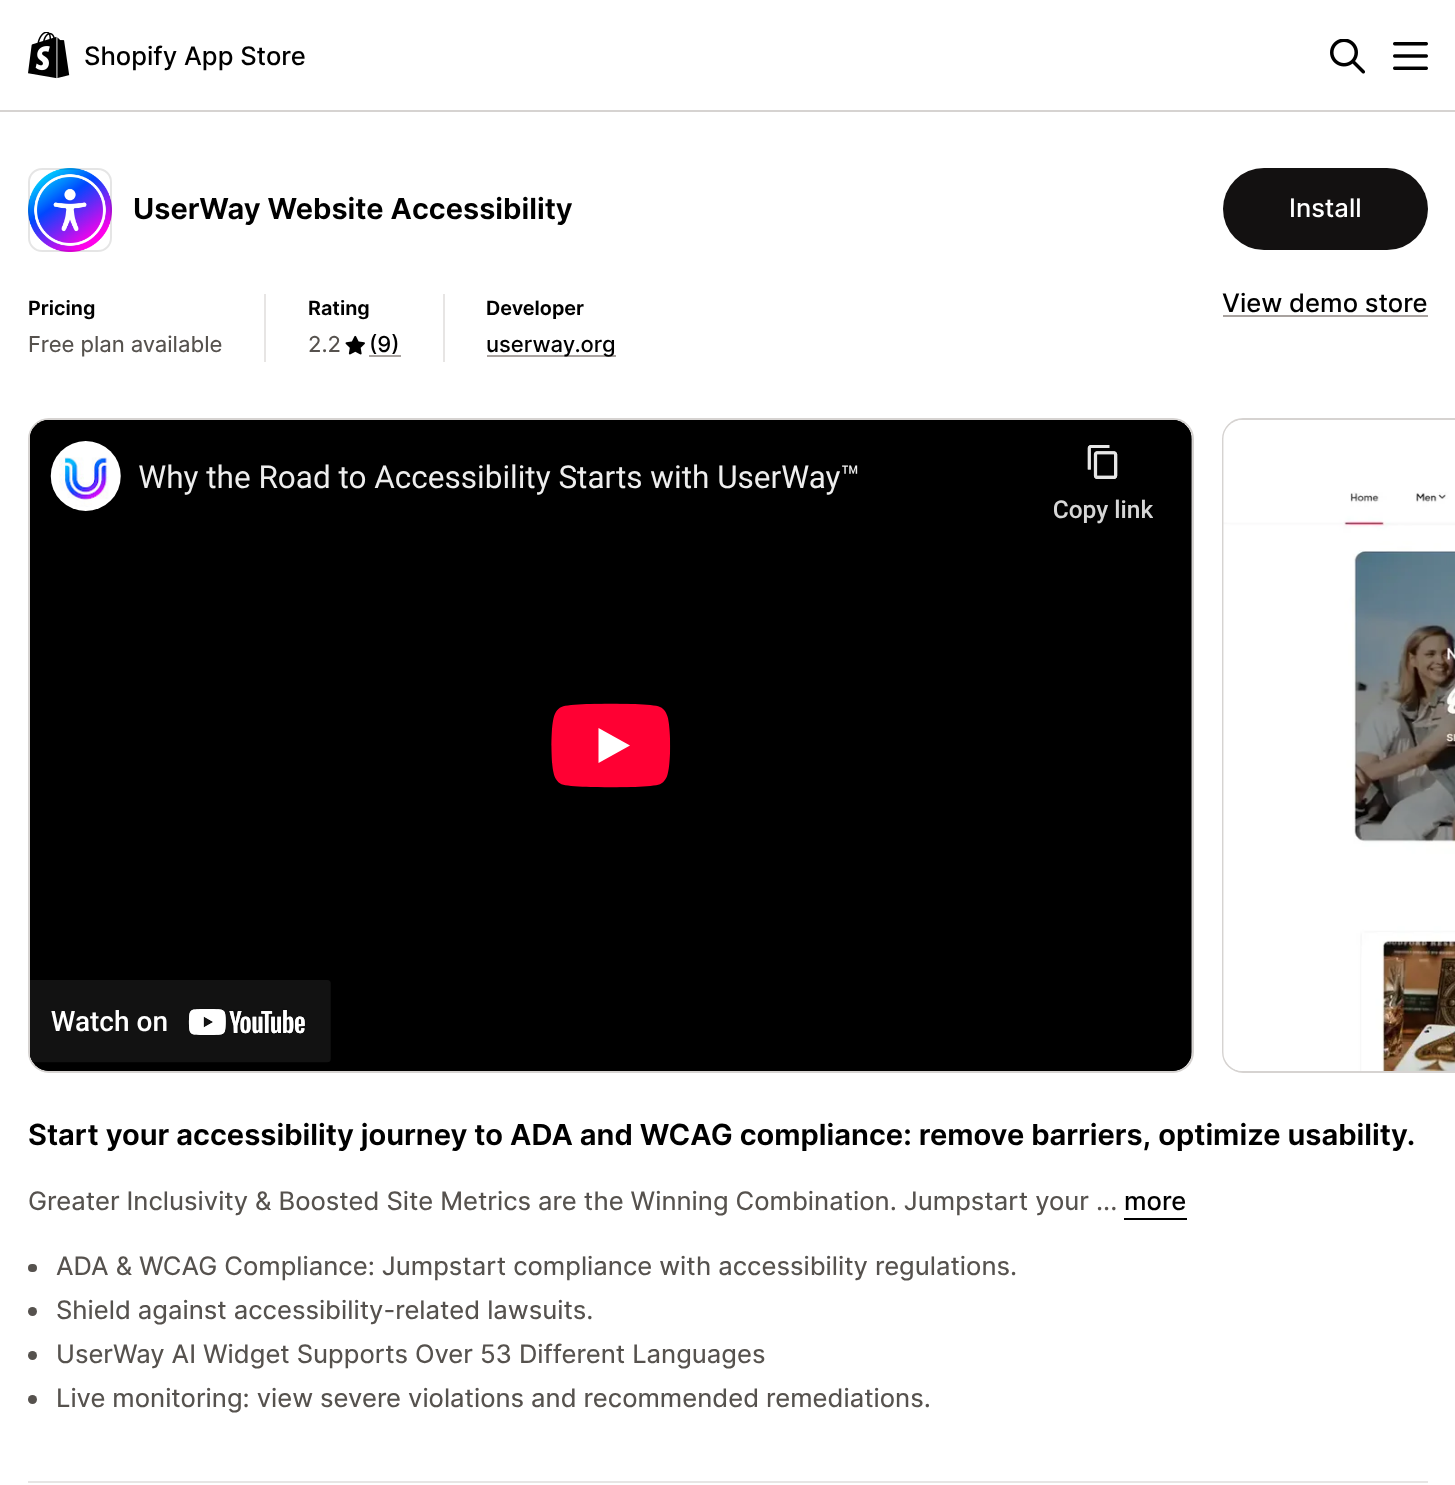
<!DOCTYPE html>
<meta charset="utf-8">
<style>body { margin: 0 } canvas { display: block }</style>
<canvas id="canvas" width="1455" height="1485"></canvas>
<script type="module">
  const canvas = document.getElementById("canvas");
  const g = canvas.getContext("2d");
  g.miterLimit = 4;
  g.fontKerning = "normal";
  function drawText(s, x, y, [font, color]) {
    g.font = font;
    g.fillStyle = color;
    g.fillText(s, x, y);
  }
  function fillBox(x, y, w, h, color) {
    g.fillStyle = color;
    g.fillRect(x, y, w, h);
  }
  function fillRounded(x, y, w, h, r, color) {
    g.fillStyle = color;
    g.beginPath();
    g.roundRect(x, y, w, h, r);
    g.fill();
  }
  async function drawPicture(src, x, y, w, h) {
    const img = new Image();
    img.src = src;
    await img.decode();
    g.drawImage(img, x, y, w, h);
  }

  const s1 = ["500 25.55px Inter", "#000000"];
  const s2 = ["600 29.05px Inter", "#000000"];
  const s3 = ["600 19.75px Inter", "#000000"];
  const s4 = ["22px Inter", "#56524E"];
  const s5 = ["500 22px Inter", "#000000"];
  const s6 = ["500 25.55px Inter", "#FFFFFF"];
  const s7 = ["25.55px Inter", "#56524E"];

  fillBox(0, 0, 1455, 1485, "#FFFFFF");
  fillBox(0, 110, 1455, 2, "#D6D3D1");
  await drawPicture("pic1.png", 28, 32, 42, 47);
  drawText("Shopify App Store", 84, 65, s1);
  await drawPicture("pic2.png", 1330, 39, 35, 35);
  await drawPicture("pic3.png", 1393, 42, 35, 28);
  await drawPicture("pic4.png", 28, 168, 84, 84);
  g.beginPath();
  g.roundRect(29, 169, 82, 82, 13);
  g.strokeStyle = "rgba(0, 0, 0, 0.1)";
  g.lineWidth = 2;
  g.stroke();
  drawText("UserWay Website Accessibility", 133, 219, s2);
  fillBox(264, 294, 2, 68, "#E7E5E4");
  drawText("Pricing", 28, 315, s3);
  drawText("Free plan available", 28, 352, s4);
  fillBox(443, 294, 2, 68, "#E7E5E4");
  drawText("Rating", 308, 315, s3);
  drawText("2.2", 308, 352, s4);
  await drawPicture("pic5.png", 345, 335, 20, 20);
  drawText("(9)", 369, 352, s5);
  fillBox(369, 355, 32, 2, "#A8A29F");
  drawText("Developer", 486, 315, s3);
  fillBox(487, 355, 129, 2, "#A8A29F");
  drawText("userway.org", 486, 352, s5);
  fillRounded(1223, 168, 205, 82, 41, "#131111");
  drawText("Install", 1289, 217, s6);
  drawText("View demo store", 1222, 312, s1);
  fillBox(1223, 315, 205, 2, "#A8A29F");
  g.beginPath();
  g.roundRect(29, 419, 1164, 653, 20);
  g.strokeStyle = "#D6D3D1";
  g.stroke();
  await drawPicture("pic6.png", 30, 420, 1162, 651);
  g.beginPath();
  g.roundRect(1223, 419, 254, 653, 20);
  g.stroke();
  await drawPicture("pic7.png", 1223, 420, 232, 651);
  drawText("Start your accessibility journey to ADA and WCAG compliance: remove barriers, optimize usability.", 28, 1145, s2);
  drawText("Greater Inclusivity & Boosted Site Metrics are the Winning Combination. Jumpstart your ...", 28, 1210, s7);
  drawText("more", 1124, 1210, s1);
  fillBox(1124, 1218, 63, 2, "#000000");
  fillRounded(28, 1264, 9, 8, 4, "#56524E");
  drawText("ADA & WCAG Compliance: Jumpstart compliance with accessibility regulations.", 56, 1275, s7);
  g.beginPath();
  g.arc(32.5, 1311.5, 4.5, 0, Math.PI * 2);
  g.fill();
  drawText("Shield against accessibility-related lawsuits.", 56, 1319, s7);
  g.beginPath();
  g.arc(32.5, 1355.5, 4.5, 0, Math.PI * 2);
  g.fill();
  drawText("UserWay AI Widget Supports Over 53 Different Languages", 56, 1363, s7);
  g.beginPath();
  g.arc(32.5, 1399.5, 4.5, 0, Math.PI * 2);
  g.fill();
  drawText("Live monitoring: view severe violations and recommended remediations.", 56, 1407, s7);
  fillBox(28, 1481, 1400, 2, "#E7E5E4");
</script>
